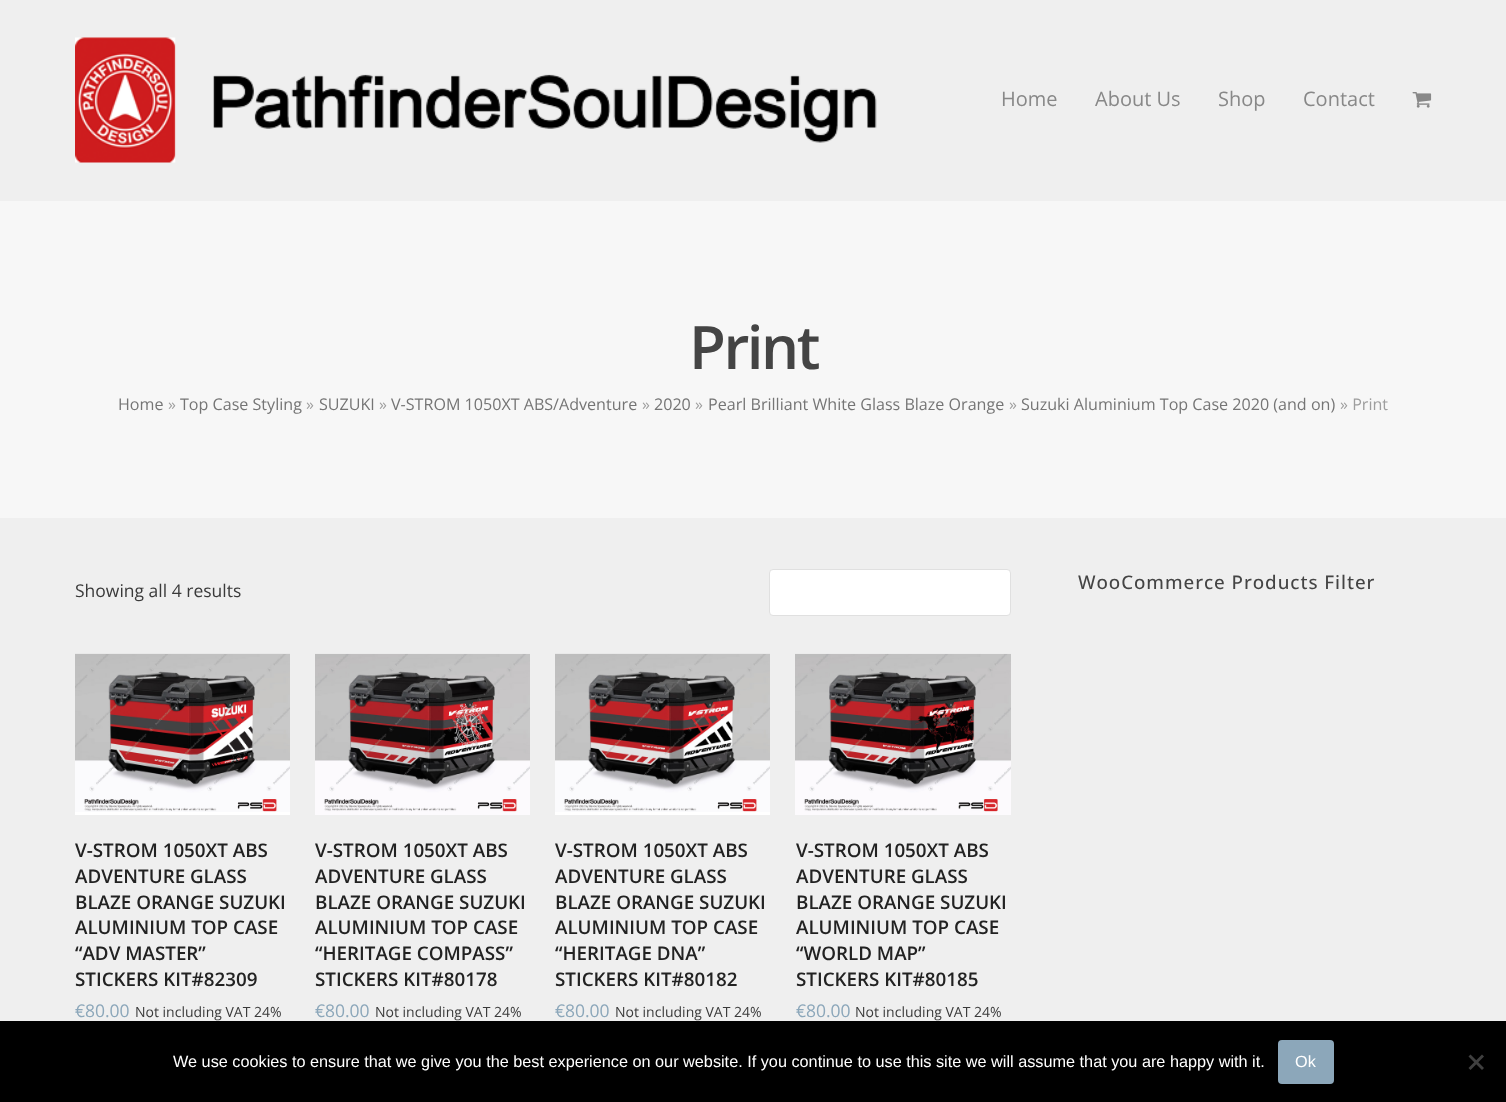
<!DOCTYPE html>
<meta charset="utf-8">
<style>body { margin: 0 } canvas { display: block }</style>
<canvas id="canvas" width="1506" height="1102"></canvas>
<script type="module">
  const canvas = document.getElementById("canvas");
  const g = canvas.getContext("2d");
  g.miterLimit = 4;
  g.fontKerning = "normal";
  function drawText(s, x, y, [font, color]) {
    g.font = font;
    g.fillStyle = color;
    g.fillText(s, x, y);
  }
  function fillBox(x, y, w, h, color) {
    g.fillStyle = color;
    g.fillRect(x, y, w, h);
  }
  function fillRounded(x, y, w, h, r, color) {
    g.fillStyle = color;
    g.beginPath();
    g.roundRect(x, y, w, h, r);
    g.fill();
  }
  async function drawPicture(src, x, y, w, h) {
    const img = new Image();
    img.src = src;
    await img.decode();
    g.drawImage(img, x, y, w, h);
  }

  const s1 = ["20px Open Sans", "#888888"];
  const s2 = ["600 60px Open Sans", "#444444"];
  const s3 = ["16.1px Open Sans", "#757575"];
  const s4 = ["16.1px Open Sans", "#9E9E9E"];
  const s5 = ["17.5px Open Sans", "#3A3A3A"];
  const s6 = ["600 18.8px Open Sans", "#222222"];
  const s7 = ["17.5px Open Sans", "#8CA7BA"];
  const s8 = ["14px Open Sans", "#3A3A3A"];
  const s9 = ["500 18.8px Open Sans", "#444444"];
  const s10 = ["16.25px Liberation Sans", "#FFFFFF"];

  fillBox(0, 0, 1506, 1102, "#EFEFEF");
  await drawPicture("pic1.png", 75, 37, 802, 126);
  drawText("Home", 1001, 106, s1);
  drawText("About Us", 1095, 106, s1);
  drawText("Shop", 1218, 106, s1);
  drawText("Contact", 1303, 106, s1);
  await drawPicture("pic2.png", 1412, 92, 20, 16);
  fillBox(0, 201, 1506, 317, "#F7F7F7");
  g.letterSpacing = "-2.5px";
  drawText("Print", 689, 369, s2);
  g.letterSpacing = "0px";
  drawText("Home", 118, 410, s3);
  drawText("»", 168, 410, s4);
  drawText("Top Case Styling", 180, 410, s3);
  drawText("»", 306, 410, s4);
  drawText("SUZUKI", 319, 410, s3);
  drawText("»", 379, 410, s4);
  drawText("V-STROM 1050XT ABS/Adventure", 391, 410, s3);
  drawText("»", 642, 410, s4);
  drawText("2020", 654, 410, s3);
  drawText("»", 695, 410, s4);
  drawText("Pearl Brilliant White Glass Blaze Orange", 708, 410, s3);
  drawText("»", 1009, 410, s4);
  drawText("Suzuki Aluminium Top Case 2020 (and on)", 1021, 410, s3);
  drawText("» Print", 1340, 410, s4);
  drawText("Showing all 4 results", 75, 597, s5);
  g.fillStyle = "#FFFFFF";
  g.beginPath();
  g.roundRect(769.5, 569.5, 241, 46, 3.5);
  g.fill();
  g.strokeStyle = "#E0E0E0";
  g.stroke();
  await drawPicture("pic3.png", 75, 653, 215, 162);
  await drawPicture("pic4.png", 75, 654, 215, 158);
  drawText("V-STROM 1050XT ABS", 75, 857, s6);
  drawText("ADVENTURE GLASS", 75, 883, s6);
  drawText("BLAZE ORANGE SUZUKI", 75, 909, s6);
  drawText("ALUMINIUM TOP CASE", 75, 934, s6);
  drawText("“ADV MASTER”", 75, 960, s6);
  drawText("STICKERS KIT#82309", 75, 986, s6);
  drawText("€80.00", 75, 1017, s7);
  drawText("Not including VAT 24%", 135, 1017, s8);
  await drawPicture("pic5.png", 315, 653, 215, 162);
  drawText("V-STROM 1050XT ABS", 315, 857, s6);
  drawText("ADVENTURE GLASS", 315, 883, s6);
  drawText("BLAZE ORANGE SUZUKI", 315, 909, s6);
  drawText("ALUMINIUM TOP CASE", 315, 934, s6);
  drawText("“HERITAGE COMPASS”", 315, 960, s6);
  drawText("STICKERS KIT#80178", 315, 986, s6);
  drawText("€80.00", 315, 1017, s7);
  drawText("Not including VAT 24%", 375, 1017, s8);
  await drawPicture("pic6.png", 555, 653, 215, 162);
  await drawPicture("pic7.png", 555, 654, 215, 158);
  drawText("V-STROM 1050XT ABS", 555, 857, s6);
  drawText("ADVENTURE GLASS", 555, 883, s6);
  drawText("BLAZE ORANGE SUZUKI", 555, 909, s6);
  drawText("ALUMINIUM TOP CASE", 555, 934, s6);
  drawText("“HERITAGE DNA”", 555, 960, s6);
  drawText("STICKERS KIT#80182", 555, 986, s6);
  drawText("€80.00", 555, 1017, s7);
  drawText("Not including VAT 24%", 615, 1017, s8);
  await drawPicture("pic8.png", 795, 653, 216, 162);
  drawText("V-STROM 1050XT ABS", 796, 857, s6);
  drawText("ADVENTURE GLASS", 796, 883, s6);
  drawText("BLAZE ORANGE SUZUKI", 796, 909, s6);
  drawText("ALUMINIUM TOP CASE", 796, 934, s6);
  drawText("“WORLD MAP”", 796, 960, s6);
  drawText("STICKERS KIT#80185", 796, 986, s6);
  drawText("€80.00", 796, 1017, s7);
  drawText("Not including VAT 24%", 855, 1017, s8);
  g.letterSpacing = "0.95px";
  drawText("WooCommerce Products Filter", 1078, 589, s9);
  fillBox(0, 1021, 1506, 81, "#000000");
  g.letterSpacing = "0px";
  drawText("We use cookies to ensure that we give you the best experience on our website. If you continue to use this site we will assume that you are happy with it.", 173, 1067, s10);
  fillRounded(1278, 1040, 56, 44, 4, "#8CA7BA");
  drawText("Ok", 1295, 1067, s10);
  g.fillStyle = "#404040";
  g.beginPath();
  g.moveTo(1482, 1054.5);
  g.lineTo(1484, 1056.5);
  g.lineTo(1470.5, 1070);
  g.lineTo(1468.5, 1068);
  g.closePath();
  g.fill();
  g.beginPath();
  g.moveTo(1468.5, 1056.5);
  g.lineTo(1470.5, 1054.5);
  g.lineTo(1484, 1068);
  g.lineTo(1482, 1070);
  g.closePath();
  g.fill();
</script>
